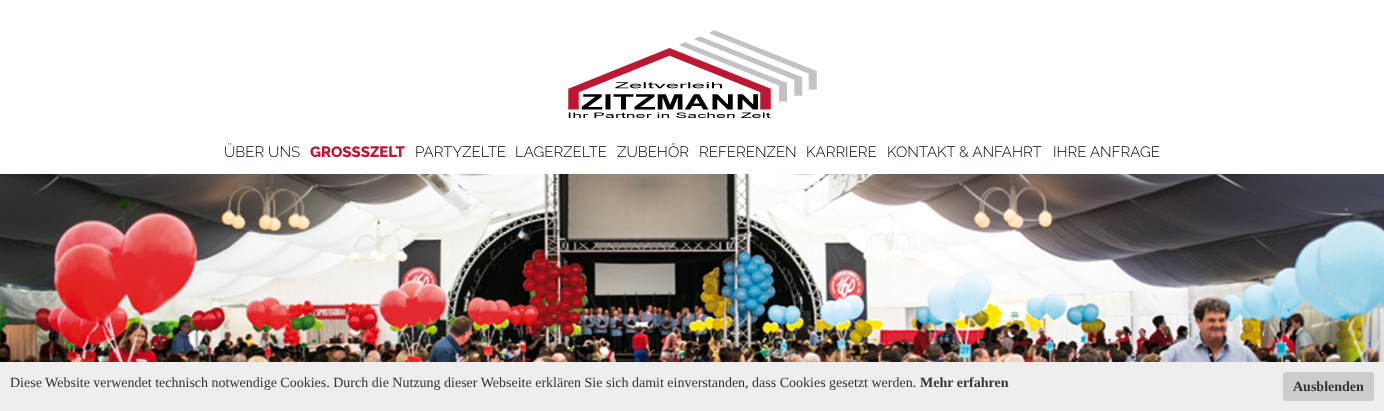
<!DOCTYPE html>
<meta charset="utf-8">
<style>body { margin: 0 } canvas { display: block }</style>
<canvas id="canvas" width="1384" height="411"></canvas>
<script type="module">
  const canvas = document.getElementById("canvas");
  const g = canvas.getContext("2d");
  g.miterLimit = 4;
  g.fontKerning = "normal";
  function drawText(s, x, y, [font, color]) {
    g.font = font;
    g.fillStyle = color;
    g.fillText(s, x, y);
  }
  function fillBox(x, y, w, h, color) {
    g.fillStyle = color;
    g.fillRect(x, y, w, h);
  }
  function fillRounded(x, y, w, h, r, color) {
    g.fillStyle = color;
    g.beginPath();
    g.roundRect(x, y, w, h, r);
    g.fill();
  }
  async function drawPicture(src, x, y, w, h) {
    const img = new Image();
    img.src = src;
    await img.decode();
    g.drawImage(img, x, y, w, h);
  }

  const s1 = ["300 15px Raleway", "#000000"];
  const s2 = ["800 15px Raleway", "#BD1734"];
  const s3 = ["14px Liberation Serif", "#333333"];
  const s4 = ["bold 14px Liberation Serif", "#333333"];

  fillBox(0, 0, 1384, 411, "#FFFFFF");
  await drawPicture("pic1.png", 568, 30, 249, 88);
  drawText("ÜBER UNS", 224, 157, s1);
  drawText("GROSSSZELT", 310, 157, s2);
  drawText("PARTYZELTE", 415, 157, s1);
  drawText("LAGERZELTE", 515, 157, s1);
  drawText("ZUBEHÖR", 617, 157, s1);
  drawText("REFERENZEN", 699, 157, s1);
  drawText("KARRIERE", 806, 157, s1);
  drawText("KONTAKT & ANFAHRT", 887, 157, s1);
  drawText("IHRE ANFRAGE", 1053, 157, s1);
  await drawPicture("pic2.png", 0, 174, 1384, 188);
  fillBox(0, 362, 1384, 49, "#EEEEEE");
  drawText("Diese Website verwendet technisch notwendige Cookies. Durch die Nutzung dieser Webseite erklären Sie sich damit einverstanden, dass Cookies gesetzt werden.", 10, 387, s3);
  drawText("Mehr erfahren", 920, 387, s4);
  fillRounded(1283, 372, 91, 29, 3, "#CCCCCC");
  drawText("Ausblenden", 1293, 391, s4);
</script>
